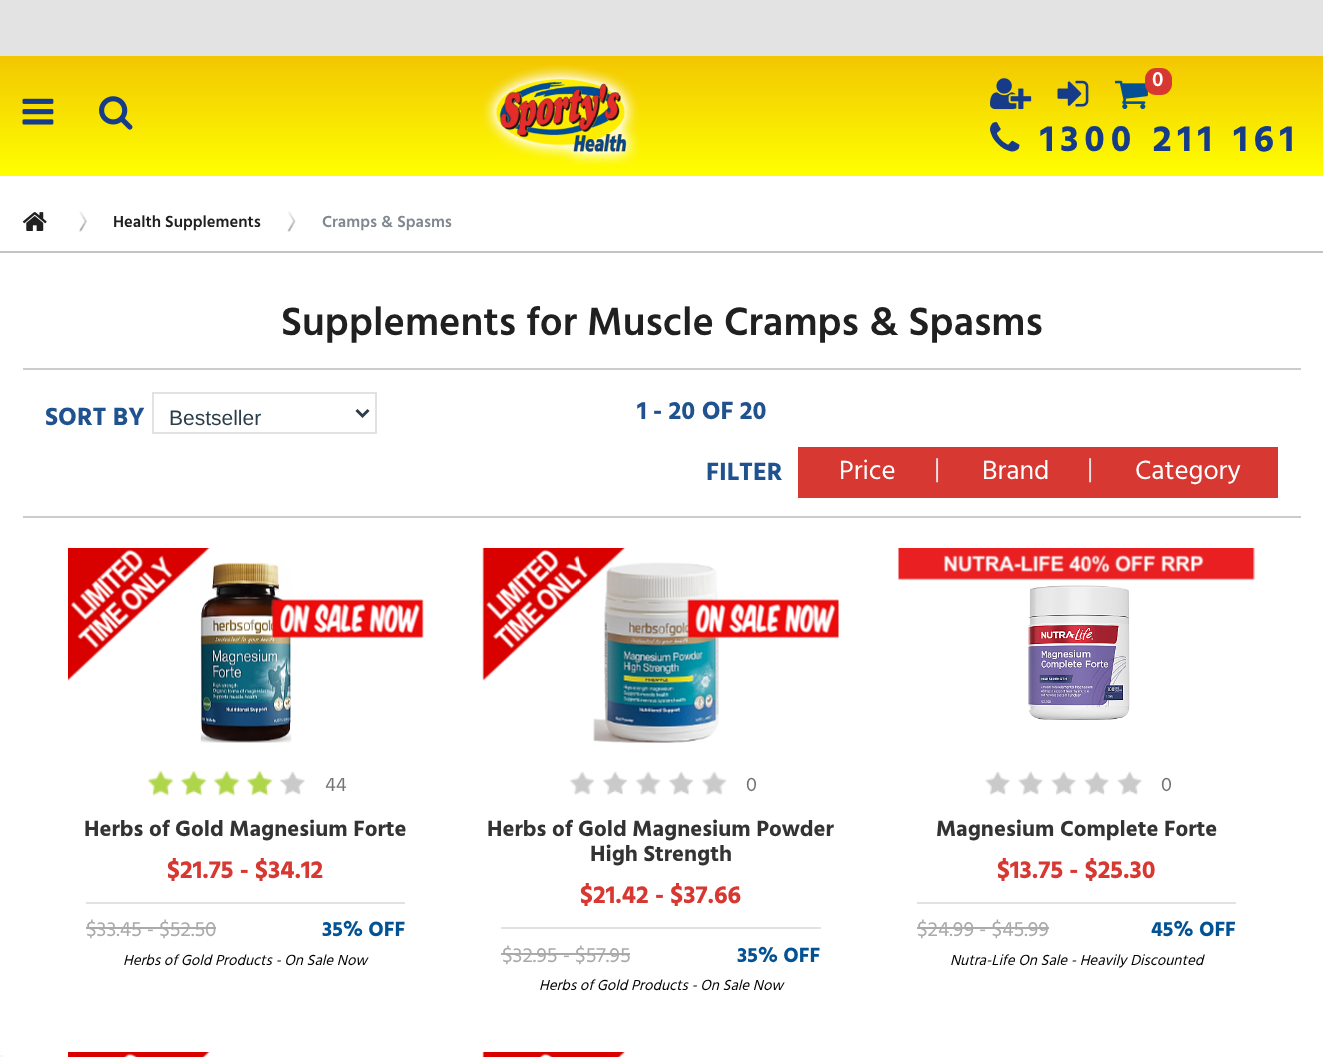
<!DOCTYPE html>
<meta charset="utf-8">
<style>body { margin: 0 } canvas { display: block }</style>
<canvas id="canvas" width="1323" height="1057"></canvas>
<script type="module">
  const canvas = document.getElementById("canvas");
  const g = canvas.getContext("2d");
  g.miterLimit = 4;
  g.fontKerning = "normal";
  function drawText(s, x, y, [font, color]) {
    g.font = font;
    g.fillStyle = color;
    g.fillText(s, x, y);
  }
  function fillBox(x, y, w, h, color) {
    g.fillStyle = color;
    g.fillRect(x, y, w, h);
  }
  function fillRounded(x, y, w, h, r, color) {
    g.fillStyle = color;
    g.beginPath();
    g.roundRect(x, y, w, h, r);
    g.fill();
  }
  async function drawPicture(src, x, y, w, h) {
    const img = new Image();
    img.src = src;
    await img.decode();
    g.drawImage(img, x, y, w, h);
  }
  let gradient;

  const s1 = ["600 21px Hind", "#FFFFFF"];
  const s2 = ["bold 37.5px Hind", "#153B89"];
  const s3 = ["600 16.5px Hind", "#202020"];
  const s4 = ["600 16.5px Hind", "#818891"];
  const s5 = ["600 40.5px Hind", "#202020"];
  const s6 = ["bold 25.5px Hind", "#20528F"];
  const s7 = ["21px Liberation Sans", "#2C3E49"];
  const s8 = ["27px Hind", "#FFFFFF"];
  const s9 = ["27px Hind", "#E0E0E0"];
  const s10 = ["20px Hind", "#747474"];
  const s11 = ["bold 22.5px Hind", "#333333"];
  const s12 = ["bold 25.25px Hind", "#D73831"];
  const s13 = ["21px Hind", "#AAAAAA"];
  const s14 = ["bold 21px Hind", "#025294"];
  const s15 = ["italic 15px Hind", "#000000"];

  fillBox(0, 0, 1323, 1057, "#FFFFFF");
  fillBox(0, 0, 1323, 56, "#E3E3E3");
  gradient = g.createLinearGradient(662, 55, 662, 176);
  gradient.addColorStop(0, "#F2C602");
  gradient.addColorStop(1, "#FFFF00");
  g.fillStyle = gradient;
  g.fillRect(0, 56, 1323, 120);
  await drawPicture("pic1.png", 22, 98, 32, 27);
  await drawPicture("pic2.png", 99, 96, 34, 34);
  await drawPicture("pic3.png", 482, 65, 158, 101);
  await drawPicture("pic4.png", 990, 78, 42, 32);
  await drawPicture("pic5.png", 1057, 80, 32, 27);
  await drawPicture("pic6.png", 1115, 80, 33, 30);
  fillRounded(1145, 68, 27, 27, 11, "#D73831");
  drawText("0", 1152, 86, s1);
  await drawPicture("pic7.png", 990, 122, 30, 30);
  g.letterSpacing = "6px";
  drawText("1300 211 161", 1040, 151, s2);
  fillBox(0, 251, 1323, 2, "#C3C3C3");
  await drawPicture("pic8.png", 22, 212, 25, 19);
  await drawPicture("pic9.png", 79, 211, 8, 21);
  g.letterSpacing = "0px";
  drawText("Health Supplements", 113, 227, s3);
  await drawPicture("pic10.png", 287, 211, 9, 21);
  drawText("Cramps & Spasms", 322, 227, s4);
  drawText("Supplements for Muscle Cramps & Spasms", 281, 335, s5);
  fillBox(23, 368, 1278, 2, "#CCCCCC");
  fillBox(23, 516, 1278, 2, "#CCCCCC");
  drawText("SORT BY", 45, 425, s6);
  g.strokeStyle = "#E2E2E2";
  g.lineWidth = 2;
  g.strokeRect(153, 393, 223, 40);
  g.beginPath();
  g.moveTo(356.5, 410);
  g.lineTo(362.5, 416);
  g.lineTo(368.5, 410);
  g.strokeStyle = "#2C3E49";
  g.lineWidth = 3;
  g.stroke();
  drawText("Bestseller", 169, 425, s7);
  drawText("1 - 20 OF 20", 637, 419, s6);
  drawText("FILTER", 706, 480, s6);
  fillBox(798, 447, 480, 51, "#D73831");
  drawText("Price", 839, 479, s8);
  drawText("|", 934, 477, s9);
  drawText("Brand", 982, 479, s8);
  drawText("|", 1087, 477, s9);
  drawText("Category", 1135, 479, s8);
  await drawPicture("pic12.png", 200, 562, 92, 181);
  await drawPicture("pic11.png", 68, 548, 356, 133);
  await drawPicture("pic13.png", 147, 770, 27, 26);
  await drawPicture("pic14.png", 180, 770, 28, 26);
  await drawPicture("pic13.png", 213, 770, 27, 26);
  await drawPicture("pic14.png", 246, 770, 28, 26);
  await drawPicture("pic15.png", 280, 771, 25, 25);
  await drawPicture("pic16.png", 279, 778, 3, 5);
  drawText("44", 325, 791, s10);
  drawText("Herbs of Gold Magnesium Forte", 84, 836, s11);
  drawText("$21.75 - $34.12", 167, 878, s12);
  fillBox(86, 902, 319, 2, "#E2E2E2");
  drawText("$33.45 - $52.50", 86, 936, s13);
  fillBox(86, 927, 130, 2, "#AAAAAA");
  drawText("35% OFF", 322, 936, s14);
  drawText("Herbs of Gold Products - On Sale Now", 123, 965, s15);
  await drawPicture("pic18.png", 593, 562, 126, 181);
  await drawPicture("pic17.png", 482, 548, 357, 133);
  await drawPicture("pic19.png", 569, 771, 26, 24);
  await drawPicture("pic20.png", 603, 771, 25, 24);
  await drawPicture("pic19.png", 635, 771, 26, 24);
  await drawPicture("pic21.png", 669, 771, 25, 24);
  await drawPicture("pic19.png", 701, 771, 26, 24);
  drawText("0", 746, 791, s10);
  drawText("Herbs of Gold Magnesium Powder", 487, 836, s11);
  drawText("High Strength", 590, 861, s11);
  drawText("$21.42 - $37.66", 580, 903, s12);
  fillBox(501, 927, 320, 2, "#E2E2E2");
  drawText("$32.95 - $57.95", 502, 962, s13);
  fillBox(501, 953, 129, 2, "#AAAAAA");
  drawText("35% OFF", 737, 962, s14);
  drawText("Herbs of Gold Products - On Sale Now", 539, 990, s15);
  await drawPicture("pic22.png", 898, 548, 357, 33);
  await drawPicture("pic23.png", 1028, 585, 102, 135);
  await drawPicture("pic15.png", 985, 771, 25, 25);
  await drawPicture("pic15.png", 1018, 771, 25, 25);
  await drawPicture("pic15.png", 1051, 771, 25, 25);
  await drawPicture("pic15.png", 1084, 771, 25, 25);
  await drawPicture("pic15.png", 1117, 771, 25, 25);
  drawText("0", 1161, 791, s10);
  drawText("Magnesium Complete Forte", 936, 836, s11);
  drawText("$13.75 - $25.30", 997, 878, s12);
  fillBox(917, 902, 319, 2, "#E2E2E2");
  drawText("$24.99 - $45.99", 917, 936, s13);
  fillBox(917, 927, 132, 2, "#AAAAAA");
  drawText("45% OFF", 1151, 936, s14);
  drawText("Nutra-Life On Sale - Heavily Discounted", 950, 965, s15);
  await drawPicture("pic24.png", 68, 1052, 142, 5);
  await drawPicture("pic25.png", 482, 1052, 143, 5);
  fillBox(0, 1055, 3, 2, "#F5F5F5");
</script>
